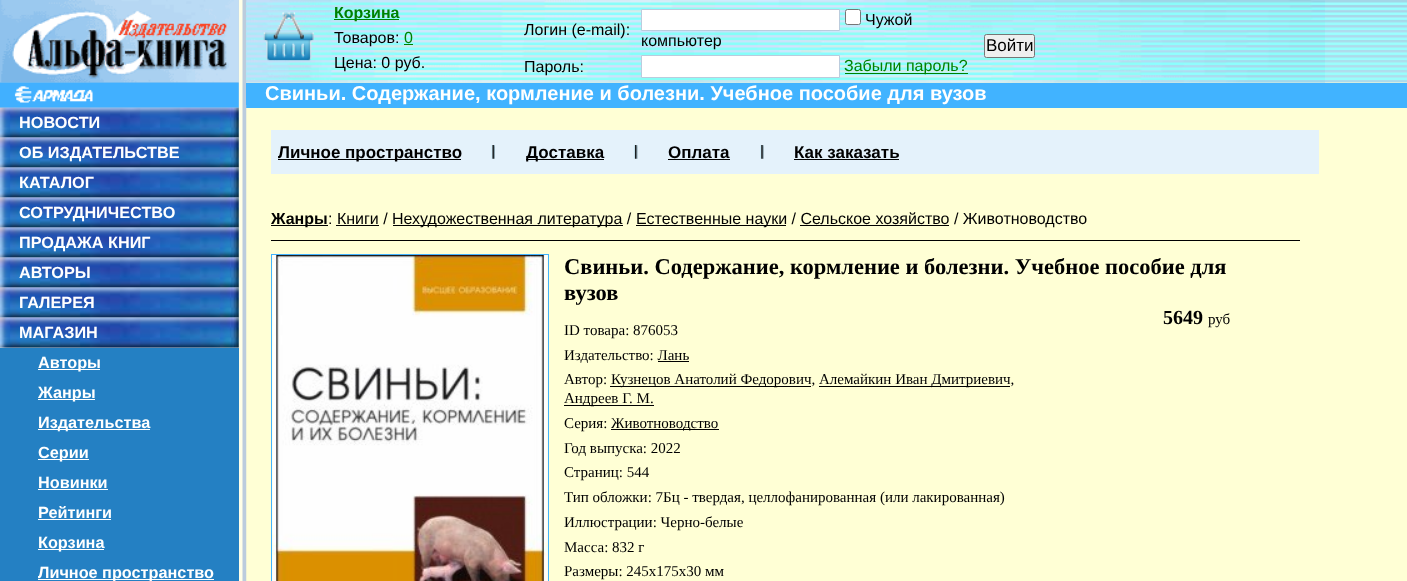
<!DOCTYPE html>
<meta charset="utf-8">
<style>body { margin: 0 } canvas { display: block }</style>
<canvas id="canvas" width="1407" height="581"></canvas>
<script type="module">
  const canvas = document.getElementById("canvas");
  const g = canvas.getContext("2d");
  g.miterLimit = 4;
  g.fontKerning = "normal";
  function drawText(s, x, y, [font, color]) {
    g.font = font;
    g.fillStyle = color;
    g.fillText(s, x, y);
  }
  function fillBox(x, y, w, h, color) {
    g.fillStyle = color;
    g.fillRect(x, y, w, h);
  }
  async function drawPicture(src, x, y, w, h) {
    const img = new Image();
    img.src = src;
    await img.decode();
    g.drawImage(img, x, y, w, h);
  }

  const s1 = ["bold 16.25px Liberation Sans", "#FFFFFF"];
  const s2 = ["bold 16px Liberation Sans", "#008000"];
  const s3 = ["16px Liberation Sans", "#000000"];
  const s4 = ["16px Liberation Sans", "#008000"];
  const s5 = ["17px Liberation Sans", "#000000"];
  const s6 = ["bold 20px Liberation Sans", "#FFFFFF"];
  const s7 = ["bold 17px Liberation Sans", "#000000"];
  const s8 = ["bold 16px Liberation Sans", "#000000"];
  const s9 = ["bold 22.5px Liberation Serif", "#000000"];
  const s10 = ["bold 20px Liberation Serif", "#000000"];
  const s11 = ["15px Liberation Serif", "#000000"];

  fillBox(0, 0, 1407, 581, "#FFFFD5");
  await drawPicture("pic1.png", 246, 0, 1161, 83);
  fillBox(246, 83, 1161, 25, "#41B3FF");
  await drawPicture("pic2.png", 0, 0, 247, 581);
  await drawPicture("pic3.png", 0, 0, 239, 83);
  await drawPicture("pic5.png", 0, 107, 239, 31);
  await drawPicture("pic4.png", 0, 82, 239, 26);
  drawText("НОВОСТИ", 19, 128, s1);
  await drawPicture("pic6.png", 0, 137, 239, 31);
  drawText("ОБ ИЗДАТЕЛЬСТВЕ", 19, 158, s1);
  await drawPicture("pic6.png", 0, 167, 239, 31);
  drawText("КАТАЛОГ", 19, 188, s1);
  await drawPicture("pic6.png", 0, 197, 239, 31);
  drawText("СОТРУДНИЧЕСТВО", 19, 218, s1);
  await drawPicture("pic6.png", 0, 227, 239, 31);
  drawText("ПРОДАЖА КНИГ", 19, 248, s1);
  await drawPicture("pic6.png", 0, 257, 239, 31);
  drawText("АВТОРЫ", 19, 278, s1);
  await drawPicture("pic7.png", 0, 287, 239, 31);
  drawText("ГАЛЕРЕЯ", 19, 308, s1);
  await drawPicture("pic6.png", 0, 317, 239, 31);
  drawText("МАГАЗИН", 19, 338, s1);
  fillBox(0, 348, 239, 233, "#2480C3");
  fillBox(38, 369, 62, 1, "#FFFFFF");
  drawText("Авторы", 38, 368, s1);
  fillBox(38, 399, 57, 1, "#FFFFFF");
  drawText("Жанры", 38, 398, s1);
  fillBox(38, 429, 112, 1, "#FFFFFF");
  drawText("Издательства", 38, 428, s1);
  fillBox(38, 459, 51, 1, "#FFFFFF");
  drawText("Серии", 38, 458, s1);
  drawText("Новинки", 38, 488, s1);
  fillBox(38, 489, 70, 1, "#FFFFFF");
  drawText("Рейтинги", 38, 518, s1);
  fillBox(38, 519, 73, 1, "#FFFFFF");
  fillBox(38, 549, 66, 1, "#FFFFFF");
  drawText("Корзина", 38, 548, s1);
  fillBox(38, 579, 176, 1, "#FFFFFF");
  drawText("Личное пространство", 38, 578, s1);
  await drawPicture("pic8.png", 246, 0, 1079, 83);
  await drawPicture("pic9.png", 263, 12, 51, 49);
  fillBox(334, 19, 65, 1, "#008000");
  drawText("Корзина", 334, 18, s2);
  drawText("Товаров:", 334, 43, s3);
  drawText("0", 404, 43, s4);
  fillBox(404, 44, 9, 1, "#008000");
  drawText("Цена: 0 руб.", 334, 68, s3);
  drawText("Логин (e-mail):", 524, 35, s3);
  g.fillStyle = "#FFFFFF";
  g.beginPath();
  g.rect(641.5, 9.5, 198, 21);
  g.fill();
  g.strokeStyle = "#BBCCDD";
  g.stroke();
  g.beginPath();
  g.roundRect(845.5, 9.5, 15, 15, 2);
  g.fill();
  g.strokeStyle = "#767676";
  g.stroke();
  drawText("Чужой", 865, 25, s3);
  drawText("компьютер", 641, 46, s3);
  g.fillStyle = "#EFEFEF";
  g.beginPath();
  g.roundRect(984.5, 34.5, 50, 23, 2);
  g.fill();
  g.stroke();
  drawText("Войти", 986, 51, s5);
  drawText("Пароль:", 524, 72, s3);
  g.fillStyle = "#FFFFFF";
  g.beginPath();
  g.rect(641.5, 55.5, 198, 22);
  g.fill();
  g.strokeStyle = "#BBCCDD";
  g.stroke();
  fillBox(845, 73, 123, 1, "#008000");
  drawText("Забыли пароль?", 844, 71, s4);
  fillBox(246, 83, 1, 22, "#41B3FF");
  drawText("Свиньи. Содержание, кормление и болезни. Учебное пособие для вузов", 265, 100, s6);
  fillBox(271, 130, 1048, 44, "#E4F2FB");
  fillBox(278, 159, 183, 1, "#000000");
  drawText("Личное пространство", 278, 158, s7);
  await drawPicture("pic10.png", 491, 145, 4, 14);
  fillBox(526, 159, 78, 1, "#000000");
  drawText("Доставка", 526, 158, s7);
  await drawPicture("pic11.png", 633, 145, 5, 14);
  drawText("Оплата", 668, 158, s7);
  fillBox(668, 159, 62, 1, "#000000");
  await drawPicture("pic12.png", 760, 145, 4, 14);
  drawText("Как заказать", 794, 158, s7);
  fillBox(794, 159, 105, 1, "#000000");
  fillBox(271, 225, 57, 1, "#000000");
  drawText("Жанры", 271, 224, s8);
  drawText(": Книги /", 328, 224, s3);
  fillBox(393, 225, 230, 1, "#000000");
  drawText("Нехудожественная литература /", 392, 224, s3);
  fillBox(636, 225, 150, 1, "#000000");
  drawText("Естественные науки / Сельское хозяйство / Животноводство", 636, 224, s3);
  fillBox(336, 225, 43, 1, "#000000");
  fillBox(800, 225, 149, 1, "#000000");
  fillBox(271, 240, 1029, 1, "#000000");
  g.strokeStyle = "#41B3FF";
  g.strokeRect(271.5, 254.5, 277, 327);
  await drawPicture("pic13.png", 272, 255, 276, 326);
  drawText("Свиньи. Содержание, кормление и болезни. Учебное пособие для", 564, 274, s9);
  drawText("вузов", 564, 300, s9);
  drawText("5649", 1163, 324, s10);
  drawText("руб", 1208, 324, s11);
  drawText("ID товара: 876053", 564, 335, s11);
  drawText("Издательство: Лань", 564, 360, s11);
  fillBox(658, 361, 31, 1, "#000000");
  drawText("Автор:", 564, 384, s11);
  fillBox(610, 386, 201, 1, "#000000");
  drawText("Кузнецов Анатолий Федорович,", 611, 384, s11);
  fillBox(819, 386, 191, 1, "#000000");
  drawText("Алемайкин Иван Дмитриевич,", 819, 384, s11);
  fillBox(564, 405, 90, 1, "#000000");
  drawText("Андреев Г. М.", 564, 403, s11);
  drawText("Серия:", 564, 428, s11);
  fillBox(611, 429, 108, 1, "#000000");
  drawText("Животноводство", 611, 428, s11);
  drawText("Год выпуска: 2022", 564, 453, s11);
  drawText("Страниц: 544", 564, 477, s11);
  drawText("Тип обложки: 7Бц - твердая, целлофанированная (или лакированная)", 564, 502, s11);
  drawText("Иллюстрации: Черно-белые", 564, 527, s11);
  drawText("Масса: 832 г", 564, 552, s11);
  drawText("Размеры: 245x175x30 мм", 564, 576, s11);
</script>
